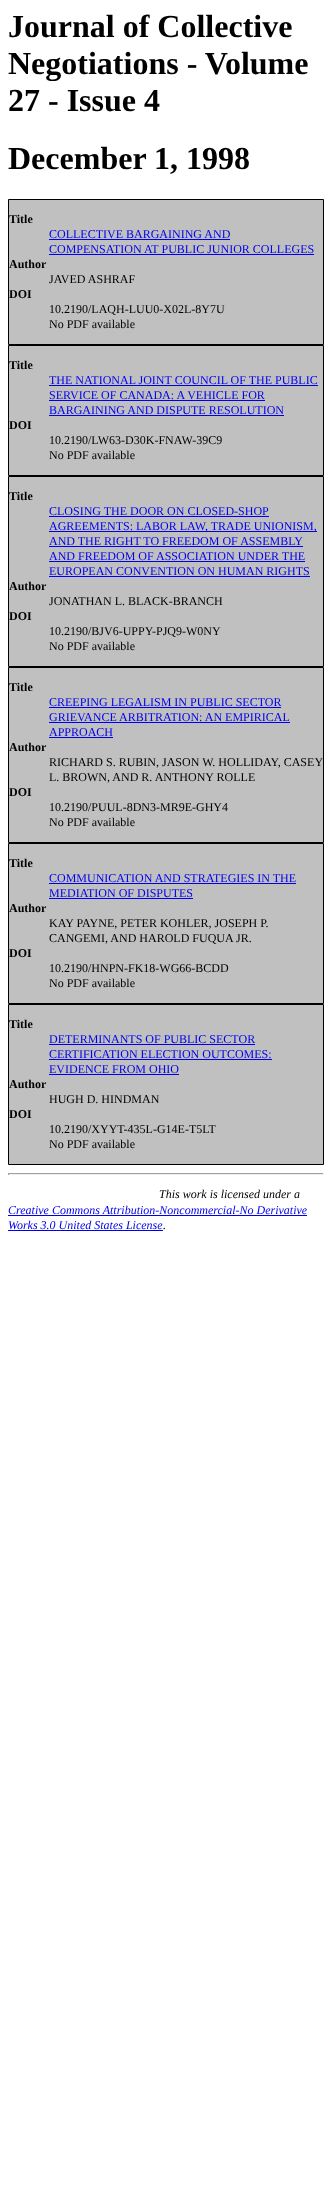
<!DOCTYPE html>
<meta charset="utf-8">
<style>body { margin: 0 } canvas { display: block }</style>
<canvas id="canvas" width="332" height="2188"></canvas>
<script type="module">
  const canvas = document.getElementById("canvas");
  const g = canvas.getContext("2d");
  g.miterLimit = 4;
  g.fontKerning = "normal";
  function drawText(s, x, y, [font, color]) {
    g.font = font;
    g.fillStyle = color;
    g.fillText(s, x, y);
  }
  function fillBox(x, y, w, h, color) {
    g.fillStyle = color;
    g.fillRect(x, y, w, h);
  }

  const s1 = ["bold 32px Liberation Serif", "#000000"];
  const s2 = ["bold 12px Liberation Serif", "#000000"];
  const s3 = ["12px Liberation Serif", "#0000EE"];
  const s4 = ["12px Liberation Serif", "#000000"];
  const s5 = ["italic 12px Liberation Serif", "#000000"];
  const s6 = ["italic 12px Liberation Serif", "#0000EE"];

  fillBox(0, 0, 332, 2188, "#FFFFFF");
  drawText("Journal of Collective", 8, 37, s1);
  drawText("Negotiations - Volume", 8, 74, s1);
  drawText("27 - Issue 4", 8, 111, s1);
  drawText("December 1, 1998", 8, 169, s1);
  g.fillStyle = "#C0C0C0";
  g.beginPath();
  g.rect(8.5, 199.5, 315, 145);
  g.fill();
  g.strokeStyle = "#000000";
  g.stroke();
  drawText("Title", 9, 223, s2);
  drawText("COLLECTIVE BARGAINING AND", 49, 238, s3);
  fillBox(49, 239, 181, 1, "#0000EE");
  drawText("COMPENSATION AT PUBLIC JUNIOR COLLEGES", 49, 253, s3);
  fillBox(49, 254, 265, 1, "#0000EE");
  drawText("Author", 9, 268, s2);
  drawText("JAVED ASHRAF", 49, 283, s4);
  drawText("DOI", 9, 298, s2);
  drawText("10.2190/LAQH-LUU0-X02L-8Y7U", 49, 313, s4);
  drawText("No PDF available", 49, 328, s4);
  g.fillStyle = "#C0C0C0";
  g.beginPath();
  g.rect(8.5, 345.5, 315, 130);
  g.fill();
  g.stroke();
  drawText("Title", 9, 369, s2);
  drawText("THE NATIONAL JOINT COUNCIL OF THE PUBLIC", 49, 384, s3);
  fillBox(49, 385, 269, 1, "#0000EE");
  drawText("SERVICE OF CANADA: A VEHICLE FOR", 49, 399, s3);
  fillBox(49, 400, 216, 1, "#0000EE");
  drawText("BARGAINING AND DISPUTE RESOLUTION", 49, 414, s3);
  fillBox(49, 415, 235, 1, "#0000EE");
  drawText("DOI", 9, 429, s2);
  drawText("10.2190/LW63-D30K-FNAW-39C9", 49, 444, s4);
  drawText("No PDF available", 49, 459, s4);
  g.fillStyle = "#C0C0C0";
  g.beginPath();
  g.rect(8.5, 476.5, 315, 190);
  g.fill();
  g.stroke();
  drawText("Title", 9, 500, s2);
  drawText("CLOSING THE DOOR ON CLOSED-SHOP", 49, 515, s3);
  fillBox(49, 516, 220, 1, "#0000EE");
  fillBox(49, 531, 268, 1, "#0000EE");
  drawText("AGREEMENTS: LABOR LAW, TRADE UNIONISM,", 49, 530, s3);
  drawText("AND THE RIGHT TO FREEDOM OF ASSEMBLY", 49, 545, s3);
  fillBox(49, 546, 254, 1, "#0000EE");
  drawText("AND FREEDOM OF ASSOCIATION UNDER THE", 49, 560, s3);
  fillBox(49, 561, 256, 1, "#0000EE");
  drawText("EUROPEAN CONVENTION ON HUMAN RIGHTS", 49, 575, s3);
  fillBox(49, 576, 261, 1, "#0000EE");
  drawText("Author", 9, 590, s2);
  drawText("JONATHAN L. BLACK-BRANCH", 49, 605, s4);
  drawText("DOI", 9, 620, s2);
  drawText("10.2190/BJV6-UPPY-PJQ9-W0NY", 49, 635, s4);
  drawText("No PDF available", 49, 650, s4);
  g.fillStyle = "#C0C0C0";
  g.beginPath();
  g.rect(8.5, 667.5, 315, 175);
  g.fill();
  g.stroke();
  drawText("Title", 9, 691, s2);
  drawText("CREEPING LEGALISM IN PUBLIC SECTOR", 49, 706, s3);
  fillBox(49, 707, 232, 1, "#0000EE");
  drawText("GRIEVANCE ARBITRATION: AN EMPIRICAL", 49, 721, s3);
  fillBox(49, 722, 241, 1, "#0000EE");
  drawText("APPROACH", 49, 736, s3);
  fillBox(49, 737, 64, 1, "#0000EE");
  drawText("Author", 9, 751, s2);
  drawText("RICHARD S. RUBIN, JASON W. HOLLIDAY, CASEY", 49, 766, s4);
  drawText("L. BROWN, AND R. ANTHONY ROLLE", 49, 781, s4);
  drawText("DOI", 9, 796, s2);
  drawText("10.2190/PUUL-8DN3-MR9E-GHY4", 49, 811, s4);
  drawText("No PDF available", 49, 826, s4);
  g.fillStyle = "#C0C0C0";
  g.beginPath();
  g.rect(8.5, 843.5, 315, 160);
  g.fill();
  g.stroke();
  drawText("Title", 9, 867, s2);
  drawText("COMMUNICATION AND STRATEGIES IN THE", 49, 882, s3);
  fillBox(49, 883, 247, 1, "#0000EE");
  drawText("MEDIATION OF DISPUTES", 49, 897, s3);
  fillBox(49, 898, 144, 1, "#0000EE");
  drawText("Author", 9, 912, s2);
  drawText("KAY PAYNE, PETER KOHLER, JOSEPH P.", 49, 927, s4);
  drawText("CANGEMI, AND HAROLD FUQUA JR.", 49, 942, s4);
  drawText("DOI", 9, 957, s2);
  drawText("10.2190/HNPN-FK18-WG66-BCDD", 49, 972, s4);
  drawText("No PDF available", 49, 987, s4);
  g.fillStyle = "#C0C0C0";
  g.beginPath();
  g.rect(8.5, 1004.5, 315, 160);
  g.fill();
  g.stroke();
  drawText("Title", 9, 1028, s2);
  drawText("DETERMINANTS OF PUBLIC SECTOR", 49, 1043, s3);
  fillBox(49, 1044, 206, 1, "#0000EE");
  drawText("CERTIFICATION ELECTION OUTCOMES:", 49, 1058, s3);
  fillBox(49, 1059, 223, 1, "#0000EE");
  drawText("EVIDENCE FROM OHIO", 49, 1073, s3);
  fillBox(49, 1074, 130, 1, "#0000EE");
  drawText("Author", 9, 1088, s2);
  drawText("HUGH D. HINDMAN", 49, 1103, s4);
  drawText("DOI", 9, 1118, s2);
  drawText("10.2190/XYYT-435L-G14E-T5LT", 49, 1133, s4);
  drawText("No PDF available", 49, 1148, s4);
  fillBox(8, 1173, 316, 1, "#9F9F9F");
  fillBox(323, 1173, 1, 2, "#EEEEEE");
  fillBox(8, 1174, 316, 1, "#EEEEEE");
  fillBox(8, 1173, 1, 2, "#9F9F9F");
  drawText("This work is licensed under a", 159, 1198, s5);
  drawText("Creative Commons Attribution-Noncommercial-No Derivative", 8, 1214, s6);
  fillBox(8, 1215, 299, 1, "#0000EE");
  drawText("Works 3.0 United States License", 8, 1229, s6);
  fillBox(8, 1230, 155, 1, "#0000EE");
  drawText(".", 163, 1229, s5);
</script>
